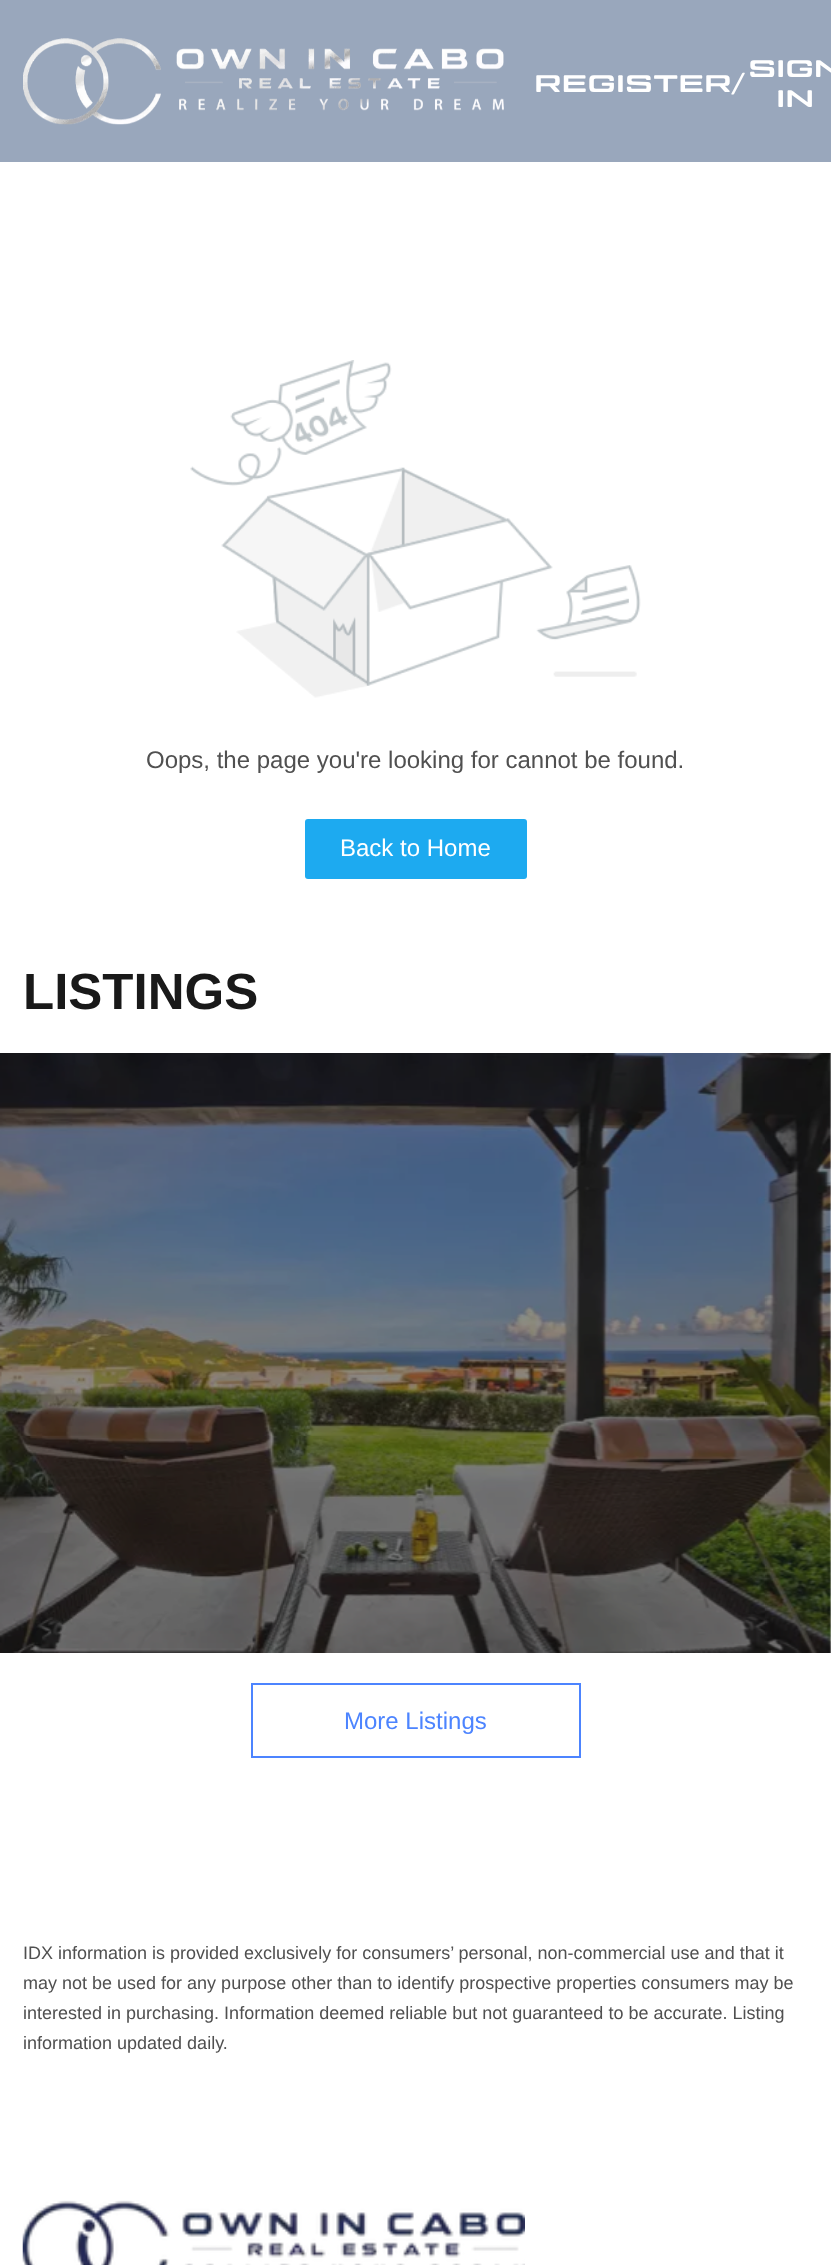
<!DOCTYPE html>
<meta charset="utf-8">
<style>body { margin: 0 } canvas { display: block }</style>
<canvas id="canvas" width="831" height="2265"></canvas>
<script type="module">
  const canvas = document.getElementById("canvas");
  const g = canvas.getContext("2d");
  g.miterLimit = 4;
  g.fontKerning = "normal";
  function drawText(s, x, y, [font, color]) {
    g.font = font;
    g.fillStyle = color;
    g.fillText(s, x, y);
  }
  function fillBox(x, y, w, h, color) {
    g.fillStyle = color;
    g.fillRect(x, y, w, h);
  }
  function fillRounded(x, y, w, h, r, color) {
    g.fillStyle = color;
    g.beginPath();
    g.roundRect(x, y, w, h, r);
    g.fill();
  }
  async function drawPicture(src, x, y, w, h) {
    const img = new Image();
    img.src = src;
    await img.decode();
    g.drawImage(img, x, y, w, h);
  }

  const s1 = ["bold 24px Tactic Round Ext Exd", "#FFFFFF"];
  const s2 = ["24px Arimo", "#505050"];
  const s3 = ["24px Arimo", "#FFFFFF"];
  const s4 = ["bold 51px Arimo", "#191919"];
  const s5 = ["24px Arimo", "#4C84FF"];
  const s6 = ["18px Arimo", "#505050"];

  fillBox(0, 0, 831, 2265, "#FFFFFF");
  fillBox(0, 0, 831, 162, "#99A7BC");
  await drawPicture("pic1.png", 23, 38, 481, 87);
  g.letterSpacing = "1.75px";
  drawText("REGISTER", 535, 92, s1);
  drawText("/", 731, 92, s1);
  drawText("SIGN", 749, 77, s1);
  drawText("IN", 777, 107, s1);
  await drawPicture("pic2.png", 190, 360, 451, 338);
  g.letterSpacing = "0px";
  drawText("Oops, the page you're looking for cannot be found.", 146, 768, s2);
  fillRounded(305, 819, 222, 60, 3, "#1DAAF0");
  drawText("Back to Home", 340, 856, s3);
  drawText("LISTINGS", 23, 1009, s4);
  await drawPicture("pic3.png", 0, 1053, 831, 600);
  g.strokeStyle = "#4C84FF";
  g.lineWidth = 2;
  g.strokeRect(252, 1684, 328, 73);
  drawText("More Listings", 344, 1729, s5);
  drawText("IDX information is provided exclusively for consumers’ personal, non-commercial use and that it", 23, 1959, s6);
  drawText("may not be used for any purpose other than to identify prospective properties consumers may be", 23, 1989, s6);
  drawText("interested in purchasing. Information deemed reliable but not guaranteed to be accurate. Listing", 23, 2019, s6);
  drawText("information updated daily.", 23, 2049, s6);
  await drawPicture("pic4.png", 22, 2200, 503, 65);
</script>
